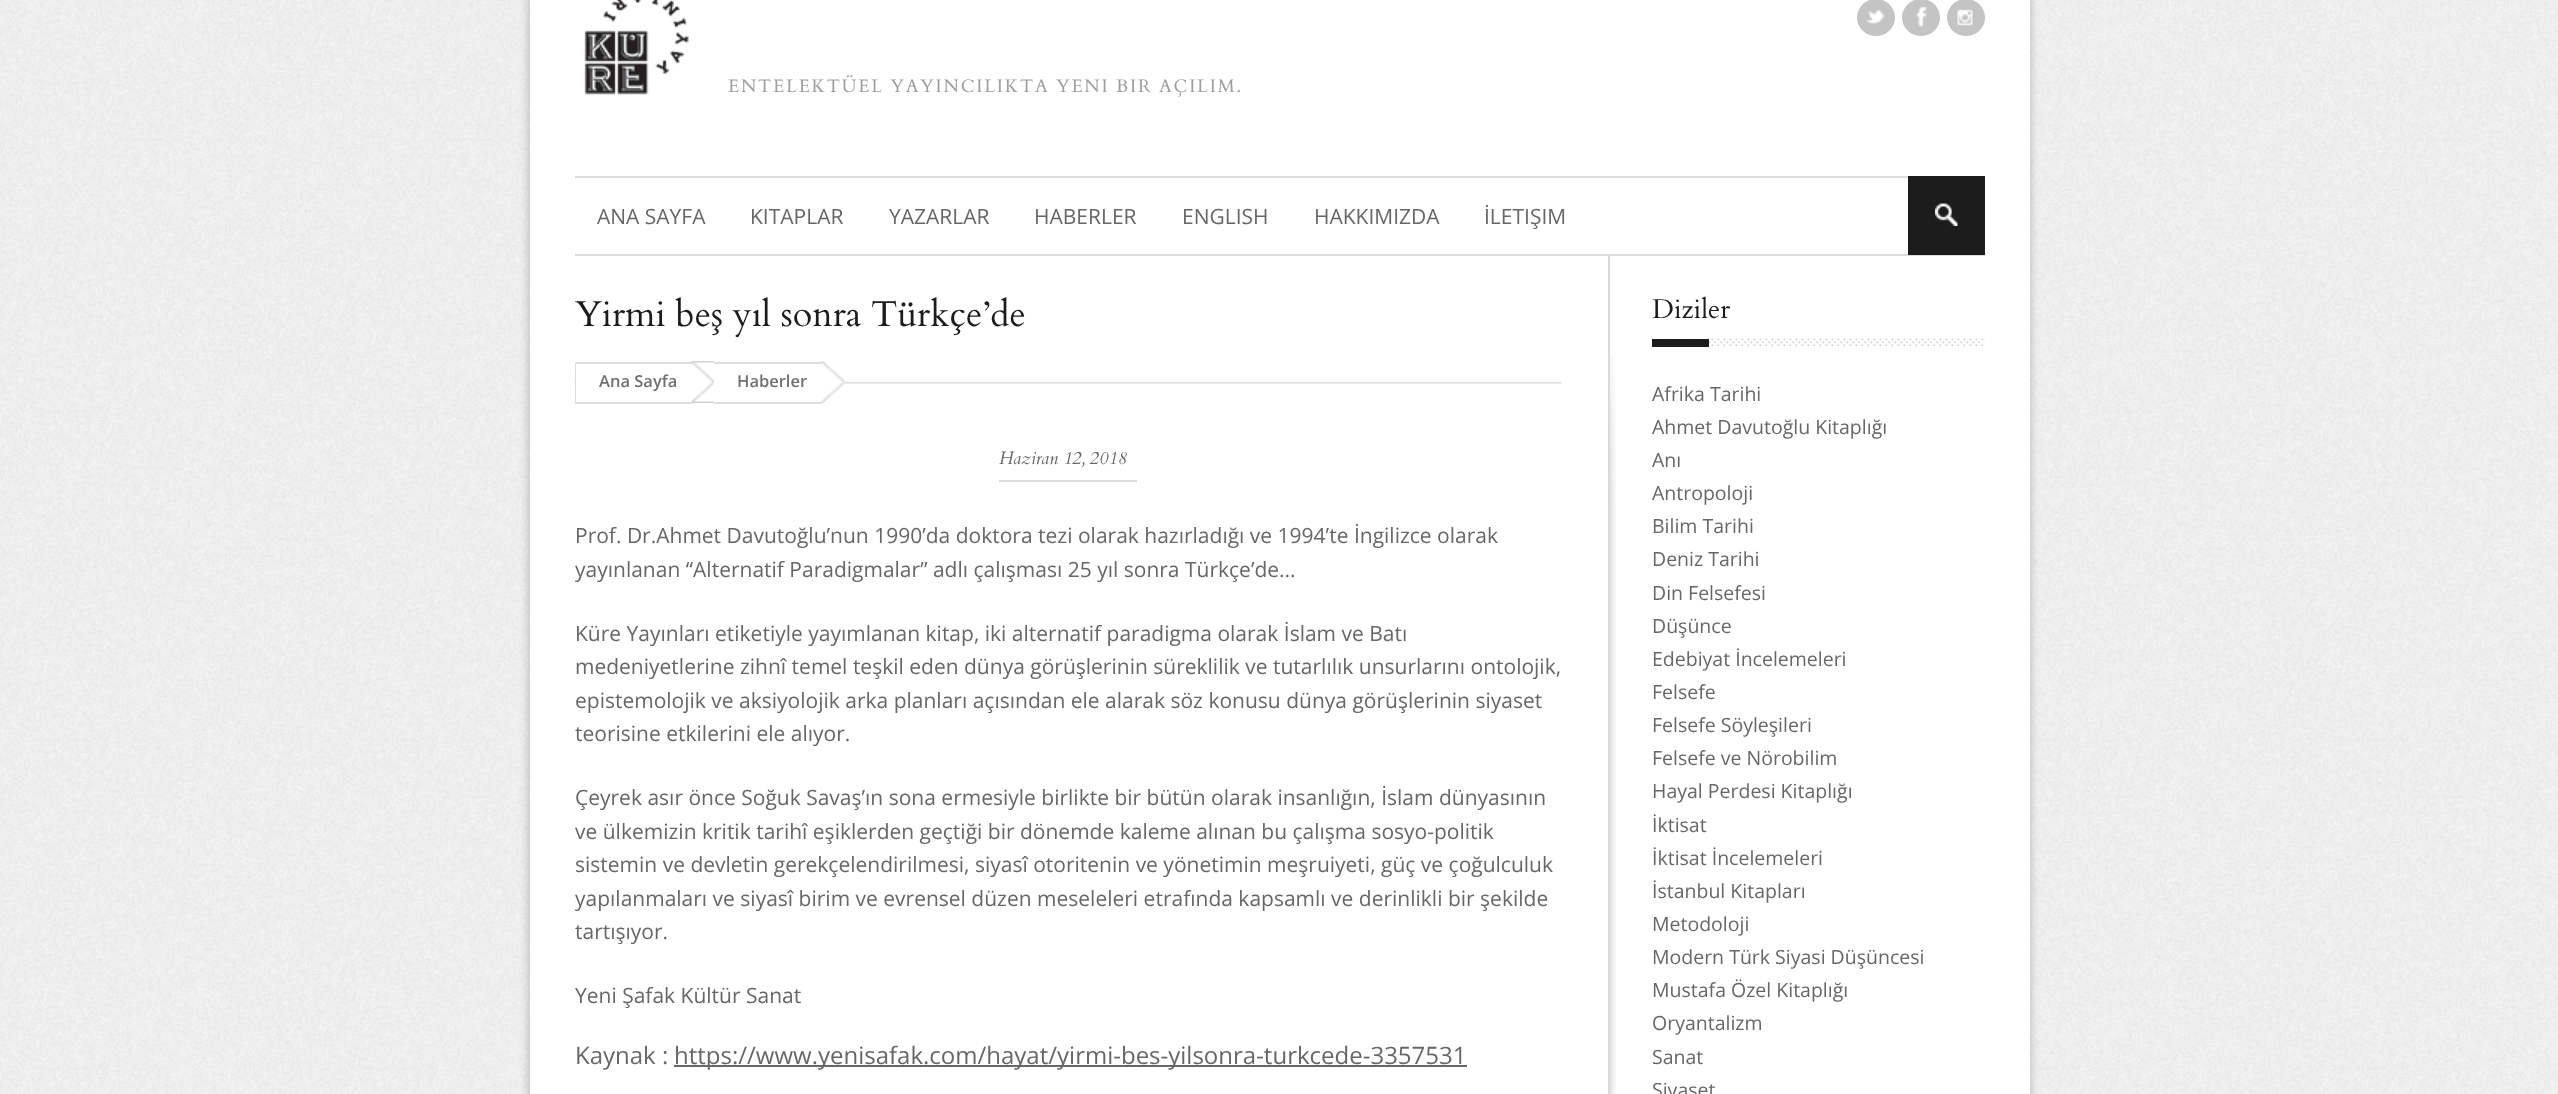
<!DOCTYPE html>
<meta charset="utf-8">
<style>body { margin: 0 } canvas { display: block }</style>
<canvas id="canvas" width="2558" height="1094"></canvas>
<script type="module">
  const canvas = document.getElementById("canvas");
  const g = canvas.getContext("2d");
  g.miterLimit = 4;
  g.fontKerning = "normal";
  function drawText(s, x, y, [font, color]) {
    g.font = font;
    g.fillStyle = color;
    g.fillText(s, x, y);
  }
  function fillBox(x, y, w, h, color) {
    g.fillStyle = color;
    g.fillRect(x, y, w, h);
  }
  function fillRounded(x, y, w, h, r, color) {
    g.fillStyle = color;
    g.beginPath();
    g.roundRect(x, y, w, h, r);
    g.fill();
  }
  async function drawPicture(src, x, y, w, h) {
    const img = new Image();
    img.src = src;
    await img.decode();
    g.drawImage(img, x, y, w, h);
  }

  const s1 = ["18px Cardo", "#A09D9D"];
  const s2 = ["21px Open Sans", "#666767"];
  const s3 = ["36px Cardo", "#1C1C1C"];
  const s4 = ["600 16.5px Open Sans", "#707070"];
  const s5 = ["italic 18px Cardo", "#666767"];
  const s6 = ["24px Open Sans", "#666767"];
  const s7 = ["27px Cardo", "#1C1C1C"];
  const s8 = ["19.5px Open Sans", "#666767"];

  fillBox(0, 0, 2558, 1094, "#FFFFFF");
  await drawPicture("pic1.png", 0, 0, 2558, 1094);
  g.fillStyle = "rgba(0, 0, 0, 0.2)";
  g.filter = "blur(4.5px)";
  g.beginPath();
  g.rect(528, -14, 1503, 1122);
  g.fill();
  g.filter = "none";
  fillBox(530, 0, 1500, 1094, "#FFFFFF");
  fillRounded(1857, -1, 38, 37, 18.5, "#C4C4C4");
  await drawPicture("pic2.png", 1866, 9, 19, 15);
  fillRounded(1902, -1, 38, 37, 18.5, "#C4C4C4");
  await drawPicture("pic3.png", 1916, 7, 11, 20);
  fillRounded(1947, -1, 38, 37, 18.5, "#C4C4C4");
  await drawPicture("pic4.png", 1957, 9, 16, 17);
  await drawPicture("pic5.png", 584, 0, 105, 95);
  g.letterSpacing = "1.8px";
  drawText("ENTELEKTÜEL YAYINCILIKTA YENI BIR AÇILIM.", 728, 92, s1);
  fillBox(575, 176, 1333, 2, "#DFDCDC");
  fillBox(1608, 255, 2, 839, "#DADADA");
  fillBox(575, 254, 1410, 2, "#DFDCDC");
  g.letterSpacing = "0px";
  drawText("ANA SAYFA", 597, 224, s2);
  drawText("KITAPLAR", 750, 224, s2);
  drawText("YAZARLAR", 889, 224, s2);
  drawText("HABERLER", 1034, 224, s2);
  drawText("ENGLISH", 1182, 224, s2);
  drawText("HAKKIMIZDA", 1314, 224, s2);
  drawText("İLETIŞIM", 1484, 224, s2);
  fillBox(1908, 176, 77, 79, "#1C1C1C");
  await drawPicture("pic6.png", 1935, 203, 23, 23);
  drawText("Yirmi beş yıl sonra Türkçe’de", 575, 326, s3);
  await drawPicture("pic7.png", 574, 382, 988, 2);
  fillBox(575, 363, 1, 41, "#DFDCDC");
  fillBox(576, 382, 269, 2, "#FFFFFF");
  await drawPicture("pic8.png", 691, 361, 23, 42);
  fillBox(576, 362, 116, 2, "#DFDCDC");
  fillBox(576, 402, 116, 2, "#DFDCDC");
  drawText("Ana Sayfa", 599, 387, s4);
  await drawPicture("pic9.png", 822, 361, 23, 42);
  fillBox(714, 362, 108, 2, "#DFDCDC");
  fillBox(714, 402, 108, 2, "#DFDCDC");
  drawText("Haberler", 737, 387, s4);
  drawText("Haziran 12, 2018", 999, 464, s5);
  fillBox(999, 480, 138, 2, "#DFDCDC");
  drawText("Prof. Dr.Ahmet Davutoğlu’nun 1990’da doktora tezi olarak hazırladığı ve 1994’te İngilizce olarak", 575, 543, s2);
  drawText("yayınlanan “Alternatif Paradigmalar” adlı çalışması 25 yıl sonra Türkçe’de...", 575, 577, s2);
  drawText("Küre Yayınları etiketiyle yayımlanan kitap, iki alternatif paradigma olarak İslam ve Batı", 575, 641, s2);
  drawText("medeniyetlerine zihnî temel teşkil eden dünya görüşlerinin süreklilik ve tutarlılık unsurlarını ontolojik,", 575, 674, s2);
  drawText("epistemolojik ve aksiyolojik arka planları açısından ele alarak söz konusu dünya görüşlerinin siyaset", 575, 708, s2);
  drawText("teorisine etkilerini ele alıyor.", 575, 741, s2);
  drawText("Çeyrek asır önce Soğuk Savaş’ın sona ermesiyle birlikte bir bütün olarak insanlığın, İslam dünyasının", 575, 805, s2);
  drawText("ve ülkemizin kritik tarihî eşiklerden geçtiği bir dönemde kaleme alınan bu çalışma sosyo-politik", 575, 839, s2);
  drawText("sistemin ve devletin gerekçelendirilmesi, siyasî otoritenin ve yönetimin meşruiyeti, güç ve çoğulculuk", 575, 872, s2);
  drawText("yapılanmaları ve siyasî birim ve evrensel düzen meseleleri etrafında kapsamlı ve derinlikli bir şekilde", 575, 906, s2);
  drawText("tartışıyor.", 575, 939, s2);
  drawText("Yeni Şafak Kültür Sanat", 575, 1003, s2);
  drawText("Kaynak :", 575, 1064, s6);
  fillBox(674, 1065, 793, 2, "#666767");
  drawText("https://www.yenisafak.com/hayat/yirmi-bes-yilsonra-turkcede-3357531", 674, 1064, s6);
  await drawPicture("pic10.png", 1610, 355, 6, 739);
  drawText("Diziler", 1652, 318, s7);
  await drawPicture("pic11.png", 1651, 338, 334, 8);
  fillBox(1652, 339, 57, 8, "#1C1C1C");
  drawText("Afrika Tarihi", 1652, 401, s8);
  drawText("Ahmet Davutoğlu Kitaplığı", 1652, 434, s8);
  drawText("Anı", 1652, 467, s8);
  drawText("Antropoloji", 1652, 500, s8);
  drawText("Bilim Tarihi", 1652, 533, s8);
  drawText("Deniz Tarihi", 1652, 566, s8);
  drawText("Din Felsefesi", 1652, 600, s8);
  drawText("Düşünce", 1652, 633, s8);
  drawText("Edebiyat İncelemeleri", 1652, 666, s8);
  drawText("Felsefe", 1652, 699, s8);
  drawText("Felsefe Söyleşileri", 1652, 732, s8);
  drawText("Felsefe ve Nörobilim", 1652, 765, s8);
  drawText("Hayal Perdesi Kitaplığı", 1652, 798, s8);
  drawText("İktisat", 1652, 832, s8);
  drawText("İktisat İncelemeleri", 1652, 865, s8);
  drawText("İstanbul Kitapları", 1652, 898, s8);
  drawText("Metodoloji", 1652, 931, s8);
  drawText("Modern Türk Siyasi Düşüncesi", 1652, 964, s8);
  drawText("Mustafa Özel Kitaplığı", 1652, 997, s8);
  drawText("Oryantalizm", 1652, 1030, s8);
  drawText("Sanat", 1652, 1064, s8);
  drawText("Siyaset", 1652, 1097, s8);
</script>
